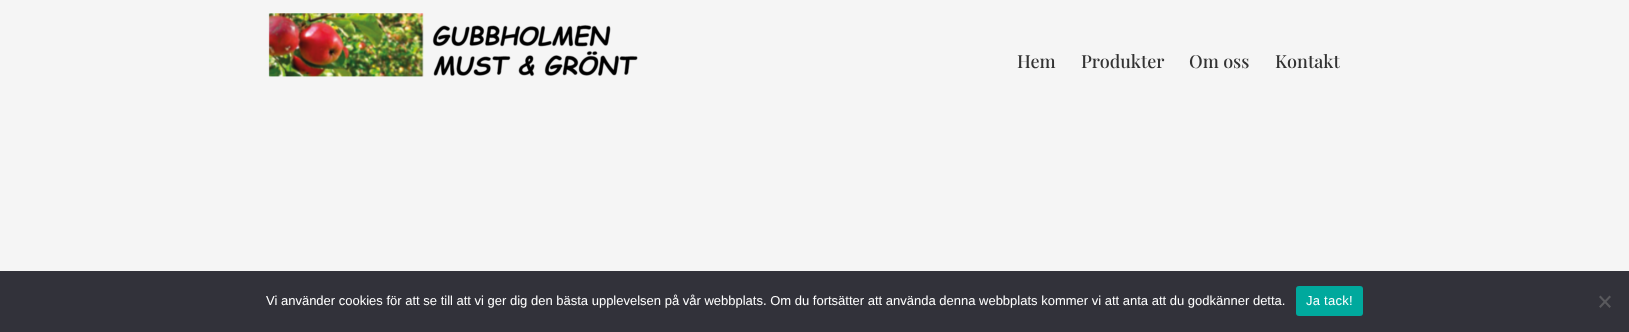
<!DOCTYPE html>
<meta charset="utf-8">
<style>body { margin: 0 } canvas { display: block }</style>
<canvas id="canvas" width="1629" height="332"></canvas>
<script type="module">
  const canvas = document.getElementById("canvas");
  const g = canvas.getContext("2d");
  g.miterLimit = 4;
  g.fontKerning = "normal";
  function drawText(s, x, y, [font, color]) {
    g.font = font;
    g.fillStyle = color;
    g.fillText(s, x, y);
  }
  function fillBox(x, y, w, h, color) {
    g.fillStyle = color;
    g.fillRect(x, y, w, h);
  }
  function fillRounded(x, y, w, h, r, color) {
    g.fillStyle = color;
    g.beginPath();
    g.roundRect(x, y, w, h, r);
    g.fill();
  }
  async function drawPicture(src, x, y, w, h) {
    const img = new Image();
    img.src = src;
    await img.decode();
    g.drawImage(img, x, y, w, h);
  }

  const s1 = ["500 18px Playfair Display", "#333333"];
  const s2 = ["13px Liberation Sans", "#FFFFFF"];

  fillBox(0, 0, 1629, 332, "#F5F5F5");
  await drawPicture("pic1.png", 268, 13, 370, 64);
  drawText("Hem", 1017, 68, s1);
  drawText("Produkter", 1081, 68, s1);
  drawText("Om oss", 1189, 68, s1);
  drawText("Kontakt", 1275, 68, s1);
  fillBox(0, 271, 1629, 61, "#32323A");
  drawText("Vi använder cookies för att se till att vi ger dig den bästa upplevelsen på vår webbplats. Om du fortsätter att använda denna webbplats kommer vi att anta att du godkänner detta.", 266, 305, s2);
  fillRounded(1296, 286, 67, 30, 3, "#00A99D");
  g.letterSpacing = "0.25px";
  drawText("Ja tack!", 1306, 305, s2);
  g.fillStyle = "#59595D";
  g.beginPath();
  g.moveTo(1609.5, 295.5);
  g.lineTo(1611, 297);
  g.lineTo(1600.5, 308);
  g.lineTo(1599, 306.5);
  g.closePath();
  g.fill();
  g.beginPath();
  g.moveTo(1599, 297);
  g.lineTo(1600.5, 295.5);
  g.lineTo(1611, 306.5);
  g.lineTo(1609.5, 308);
  g.closePath();
  g.fill();
</script>
